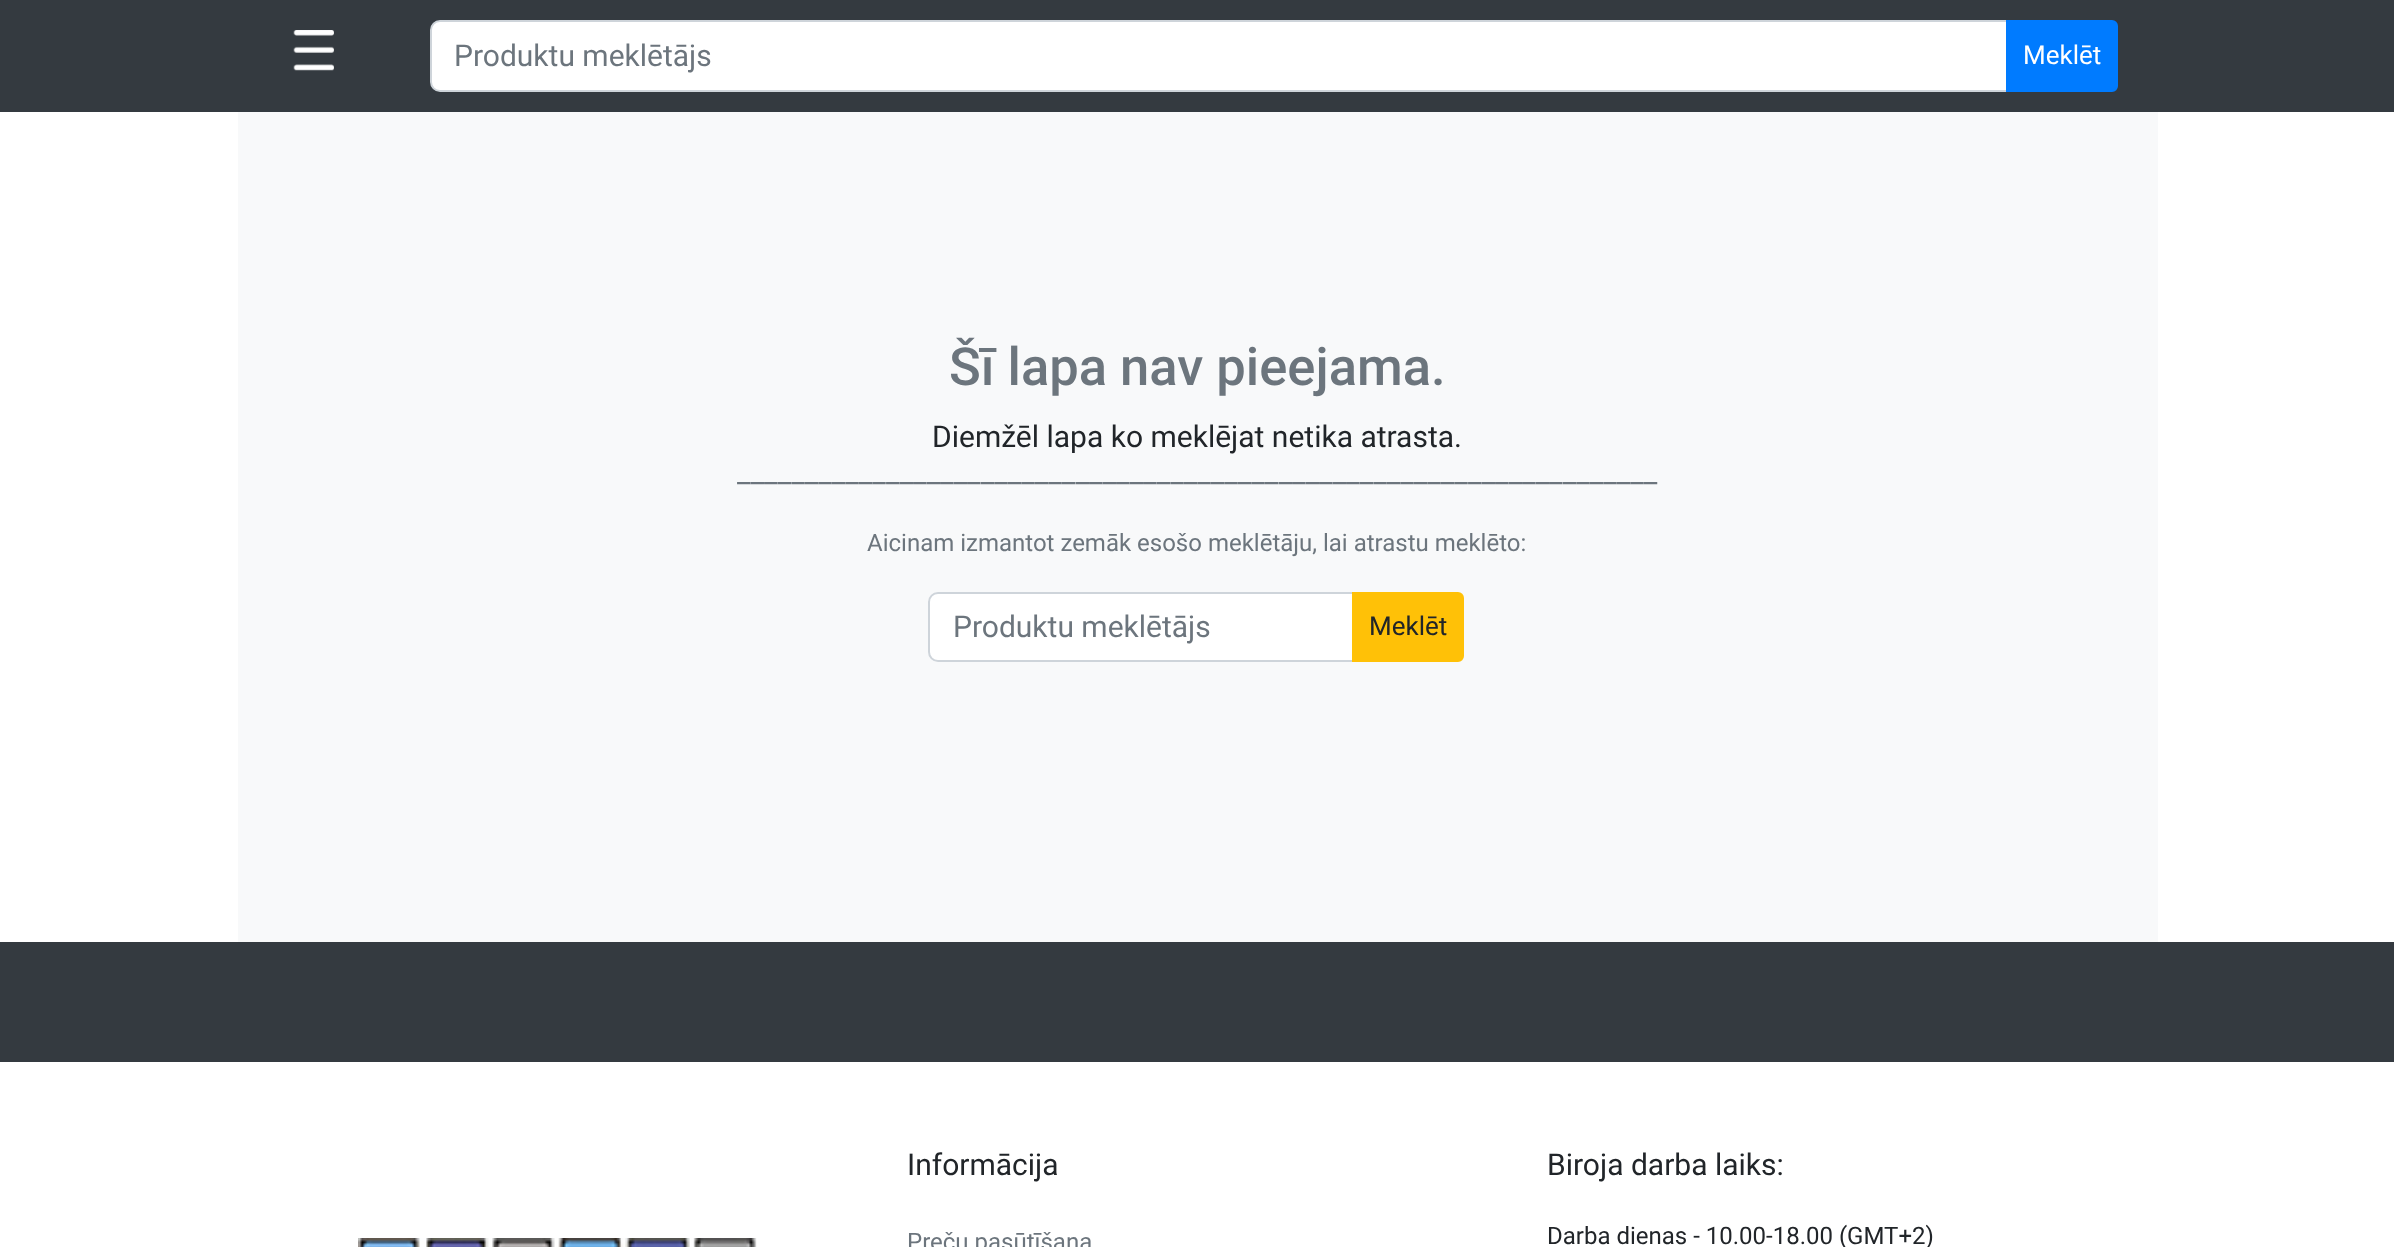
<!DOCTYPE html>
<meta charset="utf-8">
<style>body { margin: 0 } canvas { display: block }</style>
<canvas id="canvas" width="2394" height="1247"></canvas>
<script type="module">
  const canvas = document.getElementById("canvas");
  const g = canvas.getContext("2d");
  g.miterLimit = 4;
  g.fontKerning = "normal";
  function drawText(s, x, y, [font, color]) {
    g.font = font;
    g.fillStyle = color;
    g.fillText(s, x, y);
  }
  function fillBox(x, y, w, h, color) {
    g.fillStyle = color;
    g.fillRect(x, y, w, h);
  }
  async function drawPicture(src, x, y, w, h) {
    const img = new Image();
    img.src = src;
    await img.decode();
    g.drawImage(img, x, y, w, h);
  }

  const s1 = ["30px Roboto", "#6C757D"];
  const s2 = ["26px Roboto", "#FFFFFF"];
  const s3 = ["500 52.5px Roboto", "#6C757D"];
  const s4 = ["30px Roboto", "#212529"];
  const s5 = ["24px Roboto", "#6C757D"];
  const s6 = ["26px Roboto", "#212529"];
  const s7 = ["24px Roboto", "#212529"];

  fillBox(0, 0, 2394, 1247, "#FFFFFF");
  fillBox(0, 0, 2394, 112, "#343A40");
  await drawPicture("pic1.png", 293, 30, 41, 41);
  g.fillStyle = "#FFFFFF";
  g.beginPath();
  g.roundRect(431, 21, 1576, 70, [9, 0, 0, 9]);
  g.fill();
  g.strokeStyle = "#CED4DA";
  g.lineWidth = 2;
  g.stroke();
  drawText("Produktu meklētājs", 454, 66, s1);
  g.fillStyle = "#007BFF";
  g.beginPath();
  g.roundRect(2007, 21, 110, 70, [0, 5, 5, 0]);
  g.fill();
  g.strokeStyle = "#007BFF";
  g.stroke();
  drawText("Meklēt", 2023, 64, s2);
  fillBox(238, 112, 1920, 830, "#F8F9FA");
  drawText("Šī lapa nav pieejama.", 949, 385, s3);
  drawText("Diemžēl lapa ko meklējat netika atrasta.", 932, 447, s4);
  drawText("____________________________________________________________________", 737, 482, s1);
  drawText("Aicinam izmantot zemāk esošo meklētāju, lai atrastu meklēto:", 867, 551, s5);
  g.fillStyle = "#FFFFFF";
  g.beginPath();
  g.roundRect(929, 593, 424, 68, [9, 0, 0, 9]);
  g.fill();
  g.strokeStyle = "#CED4DA";
  g.stroke();
  drawText("Produktu meklētājs", 953, 637, s1);
  g.fillStyle = "#FFC107";
  g.beginPath();
  g.roundRect(1353, 593, 110, 68, [0, 5, 5, 0]);
  g.fill();
  g.strokeStyle = "#FFC107";
  g.stroke();
  drawText("Meklēt", 1369, 635, s6);
  fillBox(0, 942, 2394, 120, "#343A40");
  await drawPicture("pic2.png", 358, 1238, 399, 9);
  drawText("Informācija", 907, 1175, s4);
  drawText("Preču pasūtīšana", 907, 1250, s5);
  drawText("Biroja darba laiks:", 1547, 1175, s4);
  drawText("Darba dienas - 10.00-18.00 (GMT+2)", 1547, 1244, s7);
</script>
